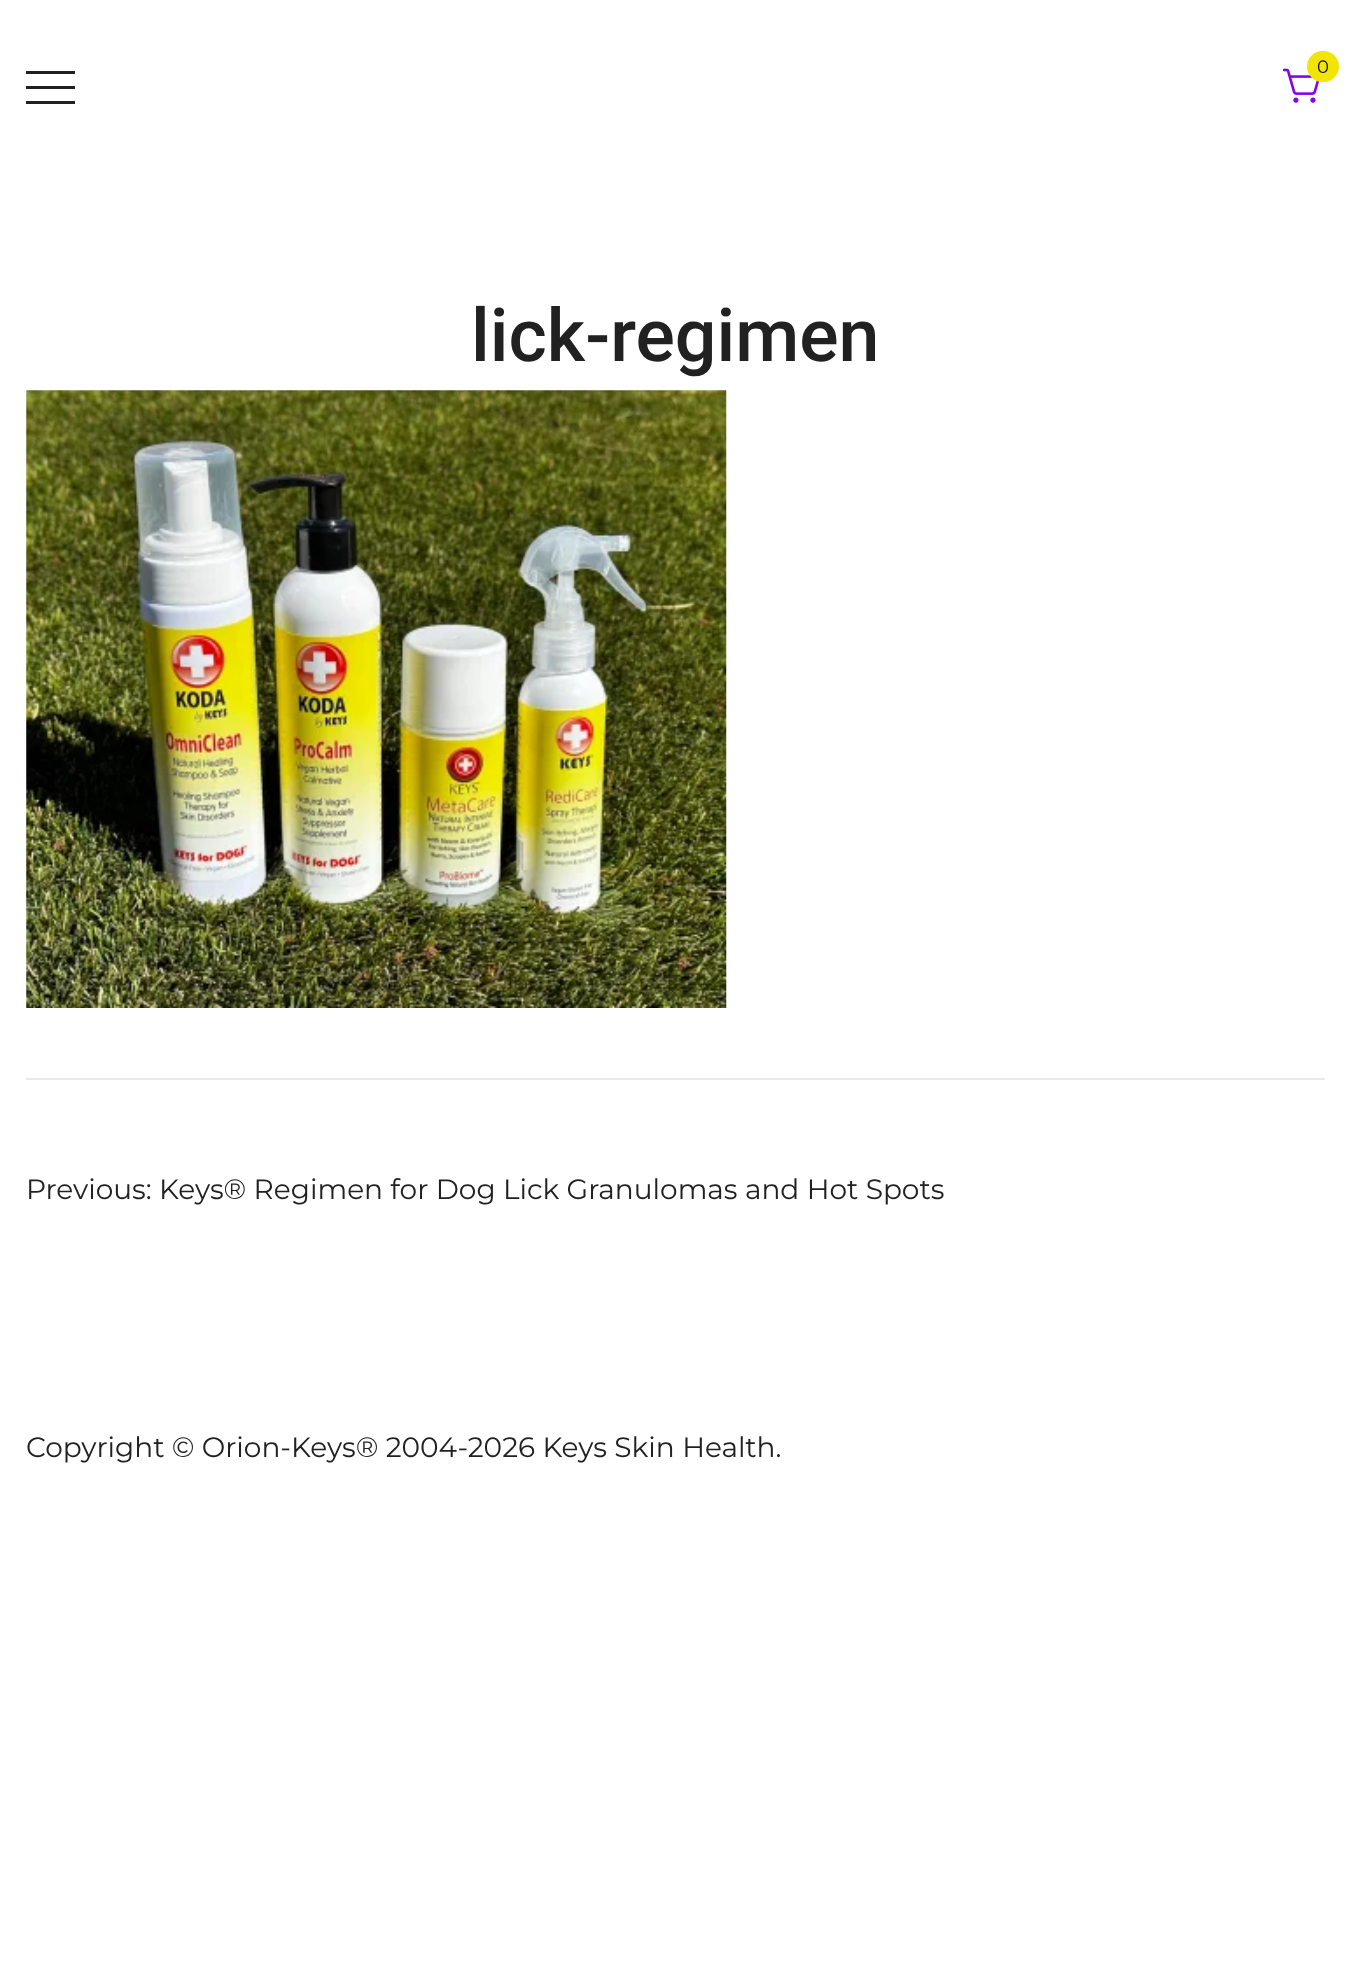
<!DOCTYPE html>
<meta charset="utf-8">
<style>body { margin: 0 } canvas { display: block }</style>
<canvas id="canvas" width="1351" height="1962"></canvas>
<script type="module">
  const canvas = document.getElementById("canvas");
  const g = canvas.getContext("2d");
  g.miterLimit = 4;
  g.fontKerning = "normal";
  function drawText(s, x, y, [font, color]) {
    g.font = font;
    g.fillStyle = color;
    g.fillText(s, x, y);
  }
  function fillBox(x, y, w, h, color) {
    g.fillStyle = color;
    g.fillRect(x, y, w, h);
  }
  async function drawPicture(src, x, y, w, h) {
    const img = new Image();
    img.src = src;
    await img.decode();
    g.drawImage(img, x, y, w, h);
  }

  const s1 = ["18px Montserrat", "#0C0C0C"];
  const s2 = ["500 73.5px Roboto", "#212121"];
  const s3 = ["28px Montserrat", "#212121"];

  fillBox(0, 0, 1351, 1962, "#FFFFFF");
  await drawPicture("pic1.png", 1283, 68, 37, 35);
  g.fillStyle = "#F2E503";
  g.beginPath();
  g.roundRect(1308, 52, 30, 29, 14.5);
  g.fill();
  g.strokeStyle = "#F2E503";
  g.lineWidth = 2;
  g.stroke();
  drawText("0", 1317, 73, s1);
  fillBox(26, 71, 49, 3, "#212121");
  fillBox(26, 86, 49, 3, "#212121");
  fillBox(26, 101, 49, 3, "#212121");
  drawText("lick-regimen", 471, 361, s2);
  await drawPicture("pic2.png", 26, 390, 701, 618);
  fillBox(26, 1078, 1299, 2, "#E9E9E9");
  drawText("Previous: Keys® Regimen for Dog Lick Granulomas and Hot Spots", 26, 1199, s3);
  drawText("Copyright © Orion-Keys® 2004-2026 Keys Skin Health.", 26, 1457, s3);
</script>
